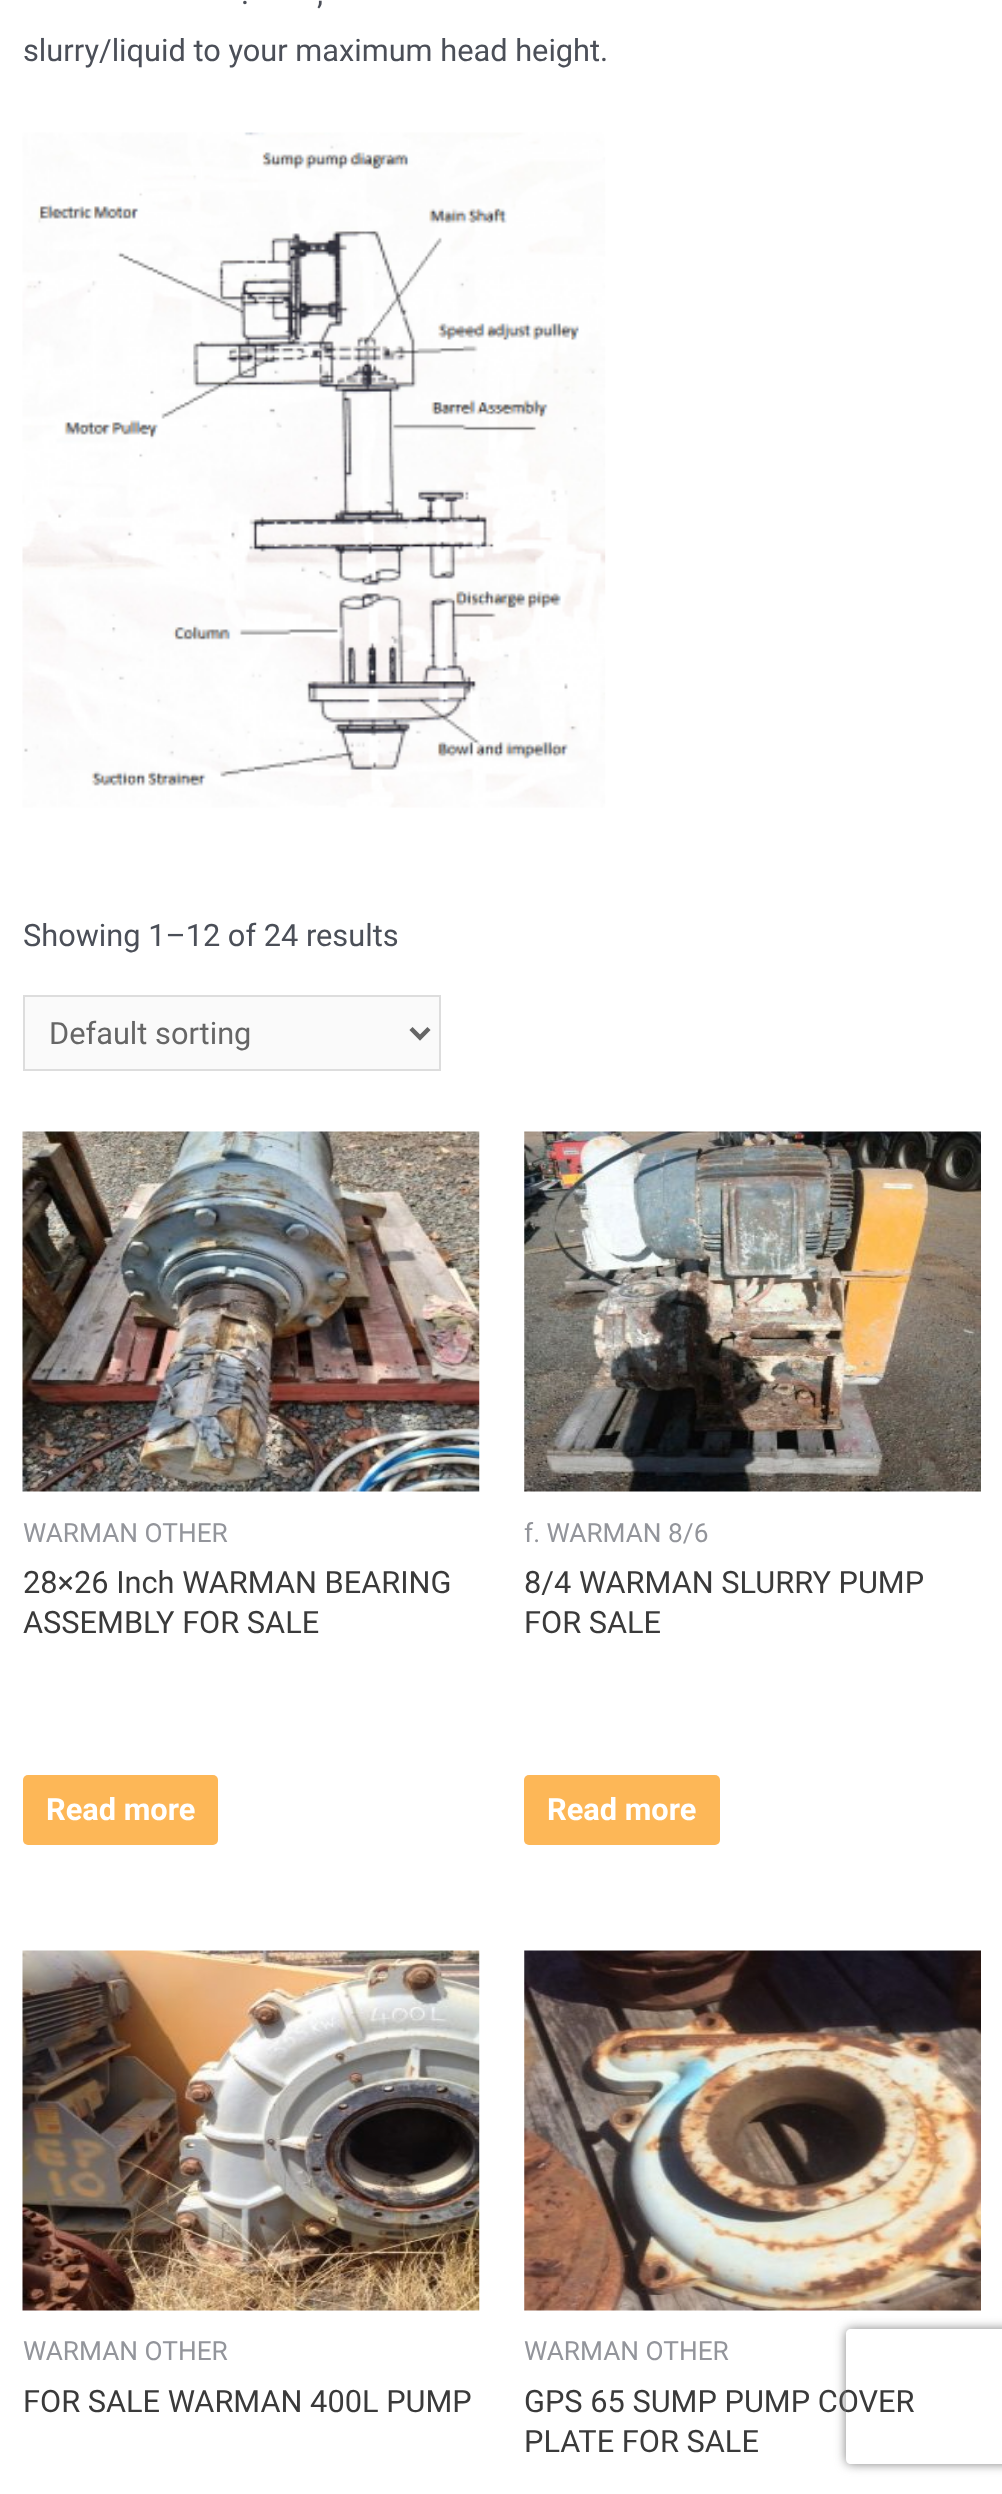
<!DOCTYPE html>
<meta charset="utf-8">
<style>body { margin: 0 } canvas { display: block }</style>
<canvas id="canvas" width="1002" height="2494"></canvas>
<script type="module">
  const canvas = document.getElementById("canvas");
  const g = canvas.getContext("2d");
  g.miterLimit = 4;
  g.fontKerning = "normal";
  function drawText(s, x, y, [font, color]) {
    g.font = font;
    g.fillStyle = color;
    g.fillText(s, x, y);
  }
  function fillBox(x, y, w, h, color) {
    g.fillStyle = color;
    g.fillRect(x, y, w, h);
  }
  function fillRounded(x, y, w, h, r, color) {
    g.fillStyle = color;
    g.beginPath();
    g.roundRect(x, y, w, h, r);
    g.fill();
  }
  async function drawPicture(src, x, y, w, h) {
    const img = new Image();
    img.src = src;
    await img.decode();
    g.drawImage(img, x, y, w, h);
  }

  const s1 = ["30.75px Roboto", "#4B4F58"];
  const s2 = ["30.75px Roboto", "#666666"];
  const s3 = ["26.25px Roboto", "#93959B"];
  const s4 = ["30.75px Roboto", "#3A3A3A"];
  const s5 = ["bold 30.75px Roboto", "#FFFFFF"];

  fillBox(0, 0, 1002, 2494, "#FFFFFF");
  drawText(".", 241, 4, s1);
  drawText(",", 317, 4, s1);
  drawText("slurry/liquid to your maximum head height.", 23, 61, s1);
  await drawPicture("pic1.png", 22, 132, 584, 676);
  drawText("Showing 1–12 of 24 results", 23, 946, s1);
  g.fillStyle = "#FAFAFA";
  g.beginPath();
  g.rect(24, 996, 416, 74);
  g.fill();
  g.strokeStyle = "#DDDDDD";
  g.lineWidth = 2;
  g.stroke();
  g.beginPath();
  g.moveTo(411, 1028.5);
  g.lineTo(420, 1037.5);
  g.lineTo(429, 1028.5);
  g.strokeStyle = "#666666";
  g.lineWidth = 4.5;
  g.stroke();
  drawText("Default sorting", 49, 1044, s2);
  await drawPicture("pic2.png", 22, 1131, 458, 361);
  drawText("WARMAN OTHER", 23, 1542, s3);
  drawText("28×26 Inch WARMAN BEARING", 23, 1593, s4);
  drawText("ASSEMBLY FOR SALE", 23, 1633, s4);
  fillRounded(23, 1775, 195, 70, 5, "#FDB757");
  drawText("Read more", 46, 1820, s5);
  await drawPicture("pic3.png", 524, 1131, 457, 361);
  drawText("f. WARMAN 8/6", 524, 1542, s3);
  drawText("8/4 WARMAN SLURRY PUMP", 524, 1593, s4);
  drawText("FOR SALE", 524, 1633, s4);
  fillRounded(524, 1775, 196, 70, 5, "#FDB757");
  drawText("Read more", 547, 1820, s5);
  await drawPicture("pic4.png", 22, 1950, 458, 361);
  drawText("WARMAN OTHER", 23, 2360, s3);
  drawText("FOR SALE WARMAN 400L PUMP", 23, 2412, s4);
  await drawPicture("pic5.png", 524, 1950, 457, 361);
  drawText("WARMAN OTHER", 524, 2360, s3);
  drawText("GPS 65 SUMP PUMP COVER", 524, 2412, s4);
  drawText("PLATE FOR SALE", 524, 2452, s4);
  g.save();
  g.beginPath();
  g.moveTo(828, 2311);
  g.lineTo(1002, 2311);
  g.lineTo(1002, 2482);
  g.lineTo(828, 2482);
  g.closePath();
  g.moveTo(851, 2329);
  g.lineTo(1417, 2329);
  g.bezierCurveTo(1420, 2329, 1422, 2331, 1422, 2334);
  g.lineTo(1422, 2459);
  g.bezierCurveTo(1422, 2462, 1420, 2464, 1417, 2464);
  g.lineTo(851, 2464);
  g.bezierCurveTo(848, 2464, 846, 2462, 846, 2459);
  g.lineTo(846, 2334);
  g.bezierCurveTo(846, 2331, 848, 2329, 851, 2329);
  g.closePath();
  g.clip("evenodd");
  g.fillStyle = "#808080";
  g.filter = "blur(5.5px)";
  g.beginPath();
  g.roundRect(846, 2329, 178, 135, 5);
  g.fill();
  g.filter = "none";
  g.restore();
</script>
